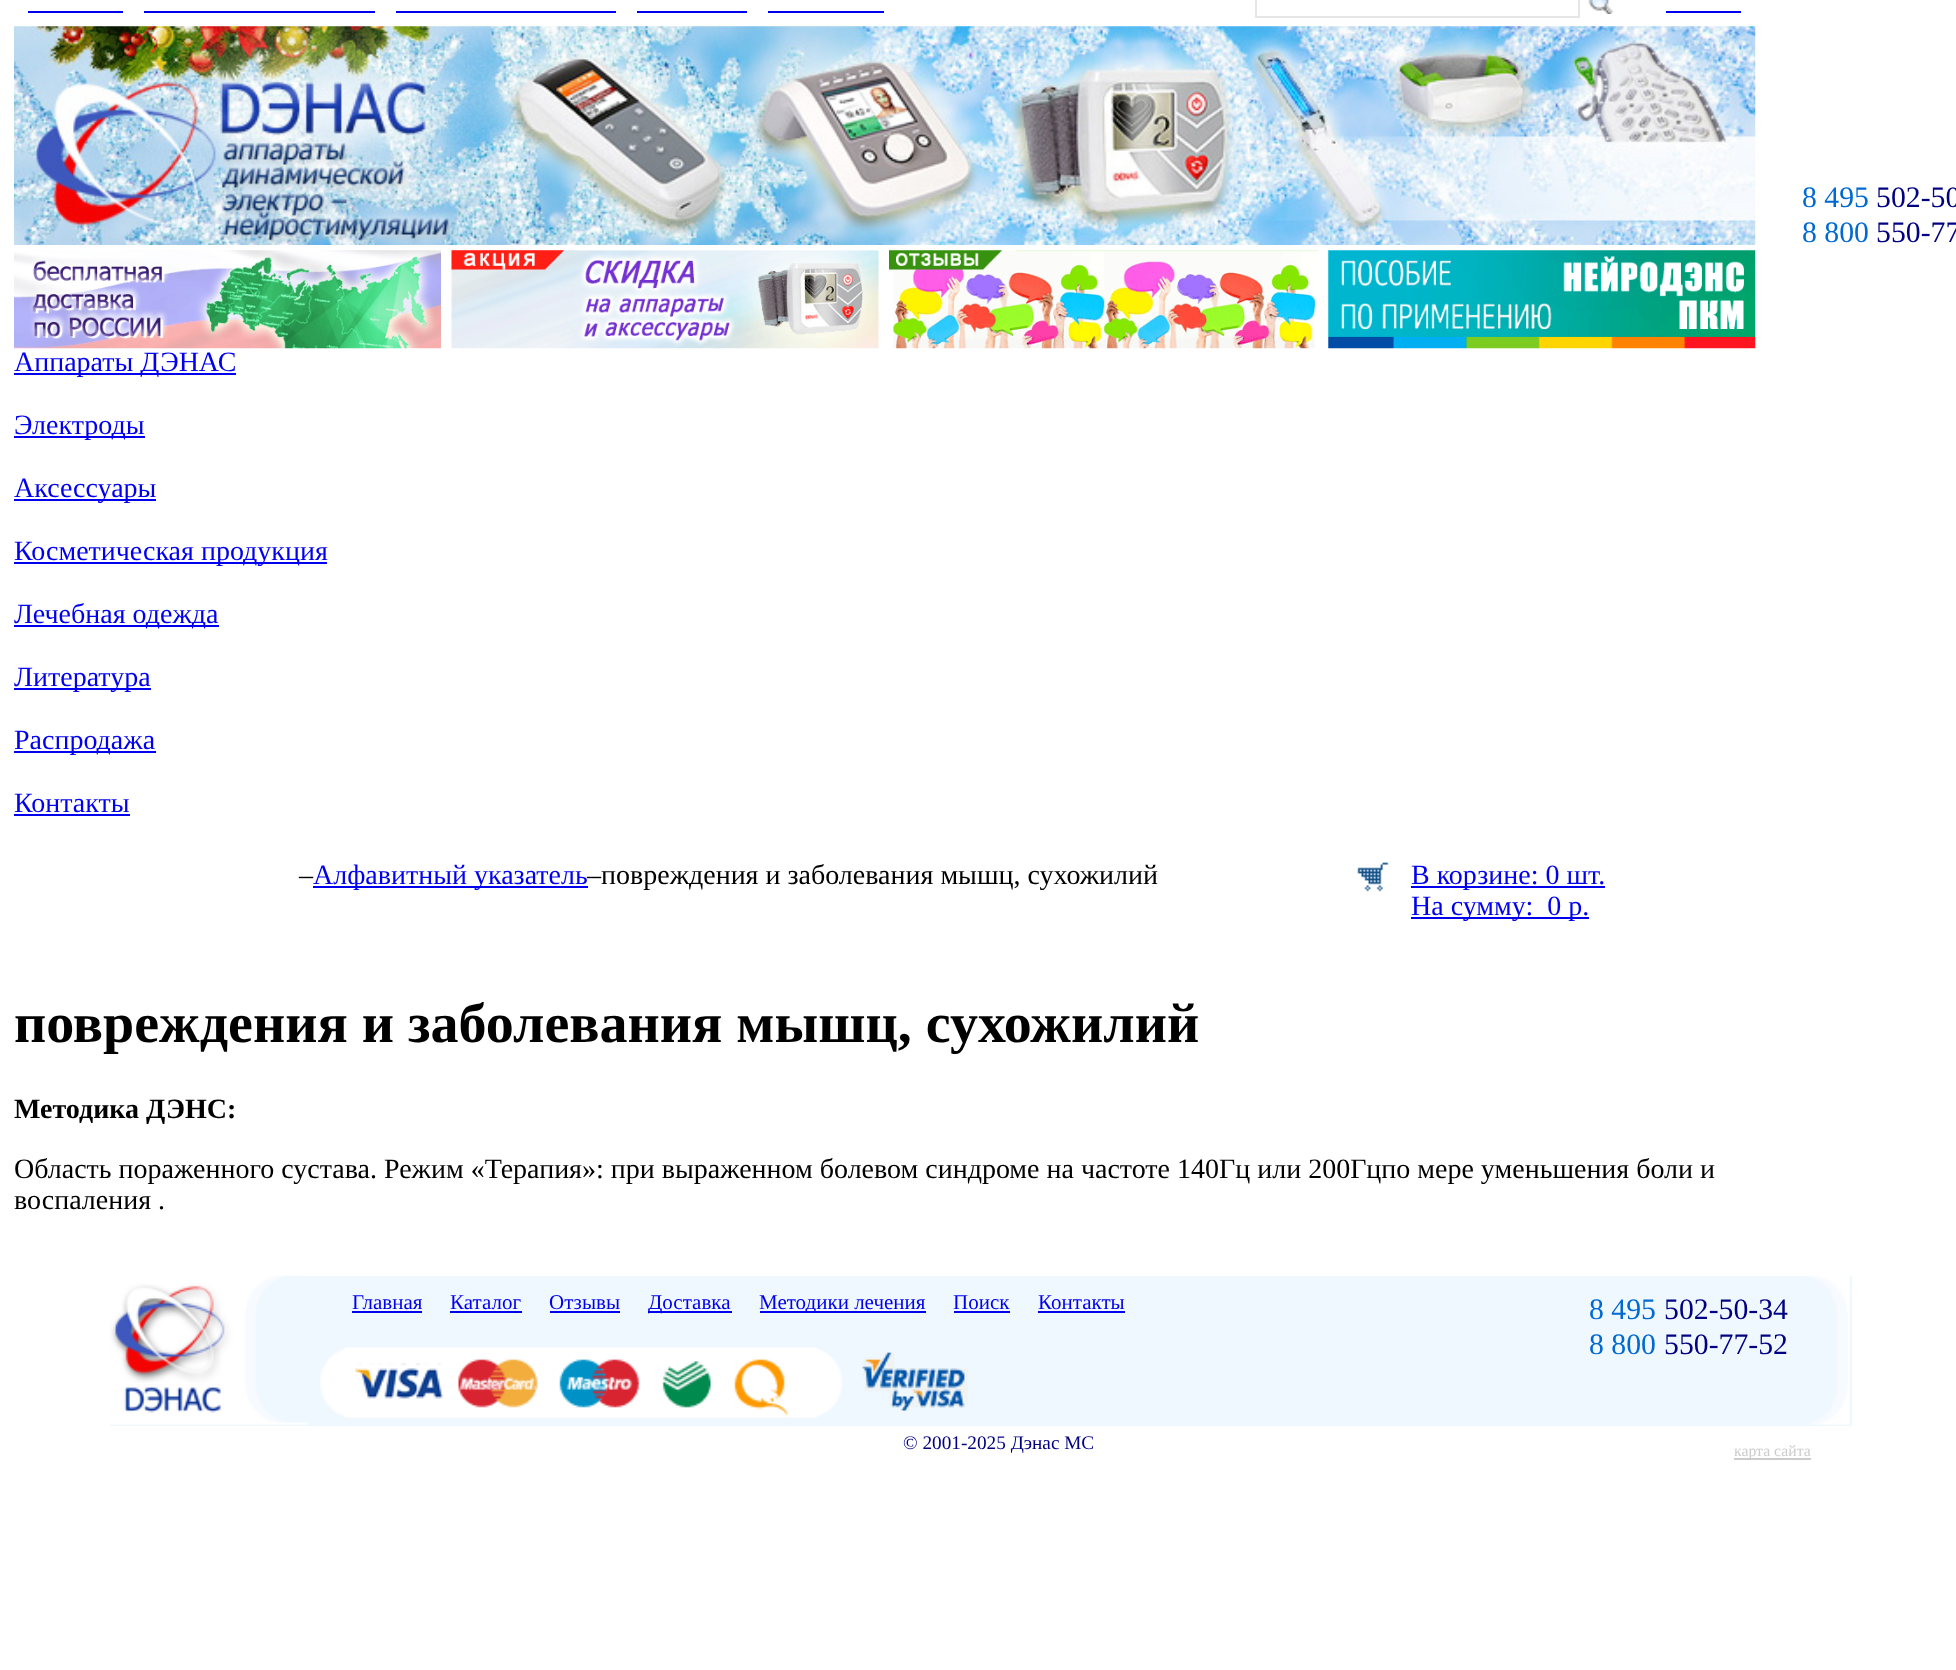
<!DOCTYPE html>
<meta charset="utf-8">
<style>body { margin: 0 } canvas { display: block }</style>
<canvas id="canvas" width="1956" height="1670"></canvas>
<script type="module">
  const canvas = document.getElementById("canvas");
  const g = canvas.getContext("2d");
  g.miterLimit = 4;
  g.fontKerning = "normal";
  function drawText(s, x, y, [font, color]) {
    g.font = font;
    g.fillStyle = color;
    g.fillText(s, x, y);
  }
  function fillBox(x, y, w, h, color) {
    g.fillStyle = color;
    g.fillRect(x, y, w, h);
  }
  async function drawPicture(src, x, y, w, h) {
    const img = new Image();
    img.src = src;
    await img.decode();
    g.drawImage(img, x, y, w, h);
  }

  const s1 = ["29.75px Liberation Serif", "#0069D2"];
  const s2 = ["29.75px Liberation Serif", "#000080"];
  const s3 = ["28px Liberation Serif", "#0000EE"];
  const s4 = ["italic 28px Liberation Serif", "#000000"];
  const s5 = ["28px Liberation Serif", "#000000"];
  const s6 = ["bold 56px Liberation Serif", "#000000"];
  const s7 = ["bold 28px Liberation Serif", "#000000"];
  const s8 = ["21px Liberation Serif", "#0000EE"];
  const s9 = ["19.25px Liberation Serif", "#000080"];
  const s10 = ["15.75px Liberation Serif", "#CCCCCC"];

  fillBox(0, 0, 1956, 1670, "#FFFFFF");
  fillBox(28, 11, 95, 2, "#0000EE");
  fillBox(144, 11, 231, 2, "#0000EE");
  fillBox(396, 11, 220, 2, "#0000EE");
  fillBox(637, 11, 110, 2, "#0000EE");
  fillBox(768, 11, 116, 2, "#0000EE");
  g.strokeStyle = "#E6E6E6";
  g.lineWidth = 2;
  g.strokeRect(1256, -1, 323, 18);
  await drawPicture("pic1.png", 1588, 0, 26, 14);
  fillBox(1666, 11, 75, 2, "#0000EE");
  await drawPicture("pic2.png", 14, 26, 1742, 219);
  await drawPicture("pic3.png", 14, 250, 427, 99);
  await drawPicture("pic4.png", 451, 250, 428, 99);
  await drawPicture("pic5.png", 889, 250, 429, 99);
  await drawPicture("pic6.png", 1328, 250, 428, 99);
  drawText("8 495", 1802, 207, s1);
  drawText("502-50", 1876, 207, s2);
  drawText("8 800", 1802, 242, s1);
  drawText("550-77", 1876, 242, s2);
  fillBox(14, 373, 222, 2, "#0000EE");
  drawText("Аппараты ДЭНАС", 14, 371, s3);
  fillBox(14, 436, 131, 2, "#0000EE");
  drawText("Электроды", 14, 434, s3);
  fillBox(14, 499, 142, 2, "#0000EE");
  drawText("Аксессуары", 14, 497, s3);
  fillBox(14, 562, 313, 2, "#0000EE");
  drawText("Косметическая продукция", 14, 560, s3);
  fillBox(14, 625, 205, 2, "#0000EE");
  drawText("Лечебная одежда", 14, 623, s3);
  fillBox(14, 688, 137, 2, "#0000EE");
  drawText("Литература", 14, 686, s3);
  fillBox(14, 751, 142, 2, "#0000EE");
  drawText("Распродажа", 14, 749, s3);
  drawText("Контакты", 14, 812, s3);
  fillBox(14, 814, 116, 2, "#0000EE");
  drawText("–", 299, 884, s4);
  fillBox(313, 886, 275, 2, "#0000EE");
  drawText("Алфавитный указатель", 313, 884, s3);
  drawText("–", 587, 884, s4);
  drawText("повреждения и заболевания мышц, сухожилий", 601, 884, s5);
  await drawPicture("pic7.png", 1357, 862, 32, 30);
  fillBox(1411, 886, 194, 2, "#0000EE");
  drawText("В корзине: 0 шт.", 1411, 884, s3);
  fillBox(1411, 917, 178, 2, "#0000EE");
  drawText("На сумму:  0 р.", 1411, 915, s3);
  drawText("повреждения и заболевания мышц, сухожилий", 14, 1042, s6);
  drawText("Методика ДЭНС:", 14, 1118, s7);
  drawText("Область пораженного сустава. Режим «Терапия»: при выраженном болевом синдроме на частоте 140Гц или 200Гцпо мере уменьшения боли и", 14, 1178, s5);
  drawText("воспаления .", 14, 1209, s5);
  fillBox(110, 1276, 1742, 150, "#F0F8FF");
  await drawPicture("pic8.png", 110, 1275, 198, 150);
  drawText("Главная", 352, 1309, s8);
  fillBox(352, 1311, 70, 2, "#0000EE");
  drawText("Каталог", 450, 1309, s8);
  fillBox(450, 1311, 72, 2, "#0000EE");
  drawText("Отзывы", 549, 1309, s8);
  fillBox(550, 1311, 70, 2, "#0000EE");
  fillBox(648, 1311, 84, 2, "#0000EE");
  drawText("Доставка", 648, 1309, s8);
  fillBox(760, 1311, 166, 2, "#0000EE");
  drawText("Методики лечения", 759, 1309, s8);
  drawText("Поиск", 953, 1309, s8);
  fillBox(954, 1311, 56, 2, "#0000EE");
  drawText("Контакты", 1038, 1309, s8);
  fillBox(1038, 1311, 87, 2, "#0000EE");
  await drawPicture("pic9.png", 320, 1347, 648, 71);
  drawText("8 495", 1589, 1319, s1);
  drawText("502-50-34", 1664, 1319, s2);
  drawText("8 800", 1589, 1354, s1);
  drawText("550-77-52", 1664, 1354, s2);
  await drawPicture("pic10.png", 1798, 1275, 52, 150);
  drawText("© 2001-2025 Дэнас МС", 903, 1449, s9);
  fillBox(1734, 1458, 77, 2, "#CCCCCC");
  drawText("карта сайта", 1734, 1456, s10);
</script>
